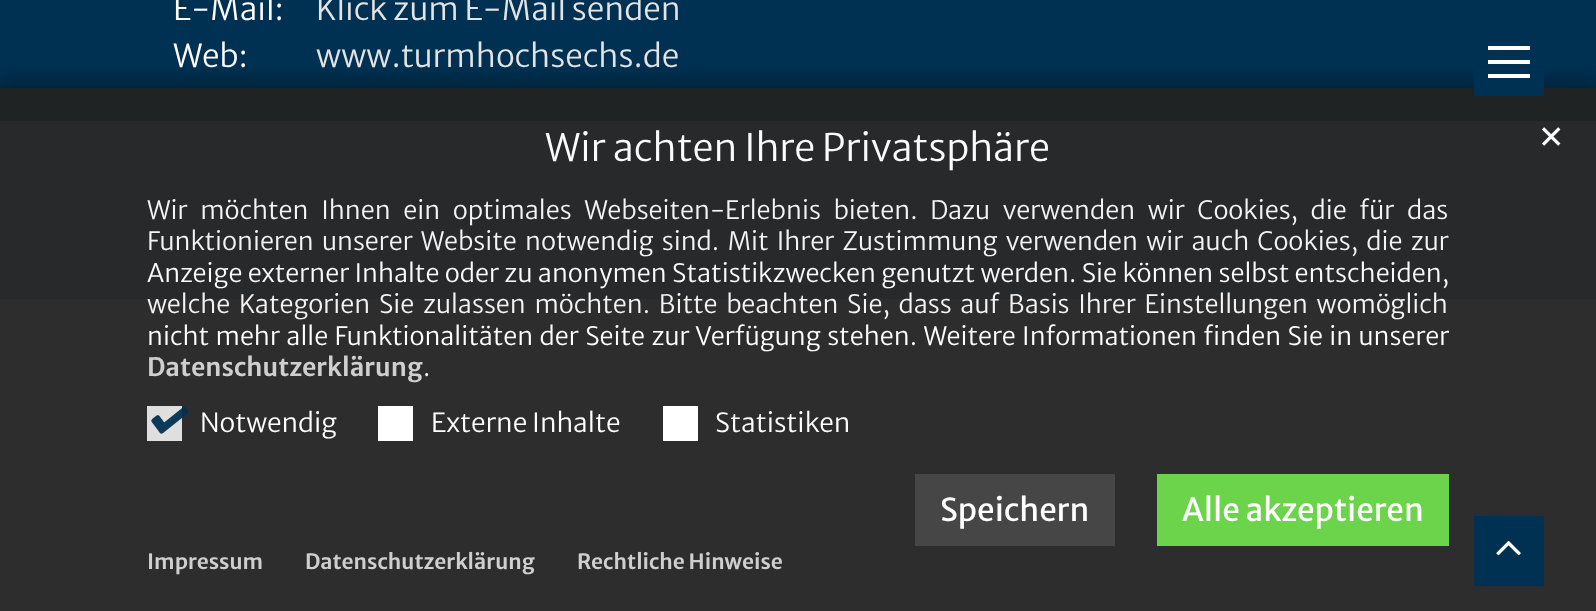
<!DOCTYPE html>
<meta charset="utf-8">
<style>body { margin: 0 } canvas { display: block }</style>
<canvas id="canvas" width="1596" height="611"></canvas>
<script type="module">
  const canvas = document.getElementById("canvas");
  const g = canvas.getContext("2d");
  g.miterLimit = 4;
  g.fontKerning = "normal";
  function drawText(s, x, y, [font, color]) {
    g.font = font;
    g.fillStyle = color;
    g.fillText(s, x, y);
  }
  function fillBox(x, y, w, h, color) {
    g.fillStyle = color;
    g.fillRect(x, y, w, h);
  }
  async function drawPicture(src, x, y, w, h) {
    const img = new Image();
    img.src = src;
    await img.decode();
    g.drawImage(img, x, y, w, h);
  }

  const s1 = ["300 31.5px Merriweather Sans", "#FFFFFF"];
  const s2 = ["300 31.5px Merriweather Sans", "#E4E4E4"];
  const s3 = ["300 37.75px Merriweather Sans", "#F9FBFD"];
  const s4 = ["31.5px DejaVu Sans", "#F9FBFD"];
  const s5 = ["300 25.2px Merriweather Sans", "#F4F4F4"];
  const s6 = ["300 25.2px Merriweather Sans", "#F9FBFD"];
  const s7 = ["300 25.2px Merriweather Sans", "#FFFFFF"];
  const s8 = ["600 25.2px Merriweather Sans", "#CFCFCF"];
  const s9 = ["300 26.25px Merriweather Sans", "#FFFFFF"];
  const s10 = ["31.5px Merriweather Sans", "#FFFFFF"];
  const s11 = ["600 21px Merriweather Sans", "#CFCFCF"];

  fillBox(0, 0, 1596, 611, "#2D2D2D");
  fillBox(0, 0, 1596, 88, "#003152");
  fillBox(0, 88, 1596, 33, "#202324");
  drawText("E-Mail:", 173, 20, s1);
  drawText("Klick zum E-Mail senden", 316, 20, s2);
  drawText("Web:", 173, 67, s1);
  drawText("www.turmhochsechs.de", 316, 67, s2);
  fillBox(0, 121, 1596, 178, "#27292B");
  g.save();
  g.beginPath();
  g.rect(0, 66, 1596, 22);
  g.clip();
  g.fillStyle = "rgba(0, 0, 0, 0.28)";
  g.filter = "blur(9px)";
  g.beginPath();
  g.rect(-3, 79, 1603, 532);
  g.fill();
  g.filter = "none";
  g.restore();
  fillBox(1474, 68, 70, 28, "#003152");
  fillBox(1488, 60, 42, 4, "#FFFFFF");
  fillBox(1488, 46, 42, 4, "#FFFFFF");
  fillBox(1488, 74, 42, 4, "#FFFFFF");
  drawText("Wir achten Ihre Privatsphäre", 545, 161, s3);
  drawText("✕", 1538, 148, s4);
  g.wordSpacing = "8px";
  drawText("Wir möchten Ihnen ein optimales Webseiten-Erlebnis bieten. Dazu verwenden wir Cookies, die für das", 147, 219, s5);
  g.wordSpacing = "3.6px";
  drawText("Funktionieren unserer Website notwendig sind. Mit Ihrer Zustimmung verwenden wir auch Cookies, die zur", 147, 250, s5);
  g.wordSpacing = "0.75px";
  drawText("Anzeige externer Inhalte oder zu anonymen Statistikzwecken genutzt werden. Sie können selbst entscheiden,", 147, 282, s6);
  g.wordSpacing = "4.1px";
  drawText("welche Kategorien Sie zulassen möchten. Bitte beachten Sie, dass auf Basis Ihrer Einstellungen womöglich", 147, 313, s5);
  g.wordSpacing = "1.75px";
  drawText("nicht mehr alle Funktionalitäten der Seite zur Verfügung stehen. Weitere Informationen finden Sie in unserer", 147, 345, s7);
  g.wordSpacing = "0px";
  drawText("Datenschutzerklärung", 147, 376, s8);
  drawText(".", 423, 376, s7);
  fillBox(147, 406, 35, 35, "#DFDFDF");
  await drawPicture("pic1.png", 151, 407, 38, 27);
  drawText("Notwendig", 200, 432, s9);
  fillBox(378, 406, 35, 35, "#FFFFFF");
  drawText("Externe Inhalte", 431, 432, s9);
  fillBox(663, 406, 35, 35, "#FFFFFF");
  drawText("Statistiken", 715, 432, s9);
  fillBox(915, 474, 200, 72, "#464646");
  drawText("Speichern", 940, 521, s10);
  fillBox(1157, 474, 292, 72, "#6CD44B");
  drawText("Alle akzeptieren", 1182, 521, s10);
  drawText("Impressum", 147, 569, s11);
  drawText("Datenschutzerklärung", 305, 569, s11);
  drawText("Rechtliche Hinweise", 577, 569, s11);
  fillBox(1474, 516, 70, 70, "#003152");
  await drawPicture("pic2.png", 1496, 541, 25, 15);
</script>
